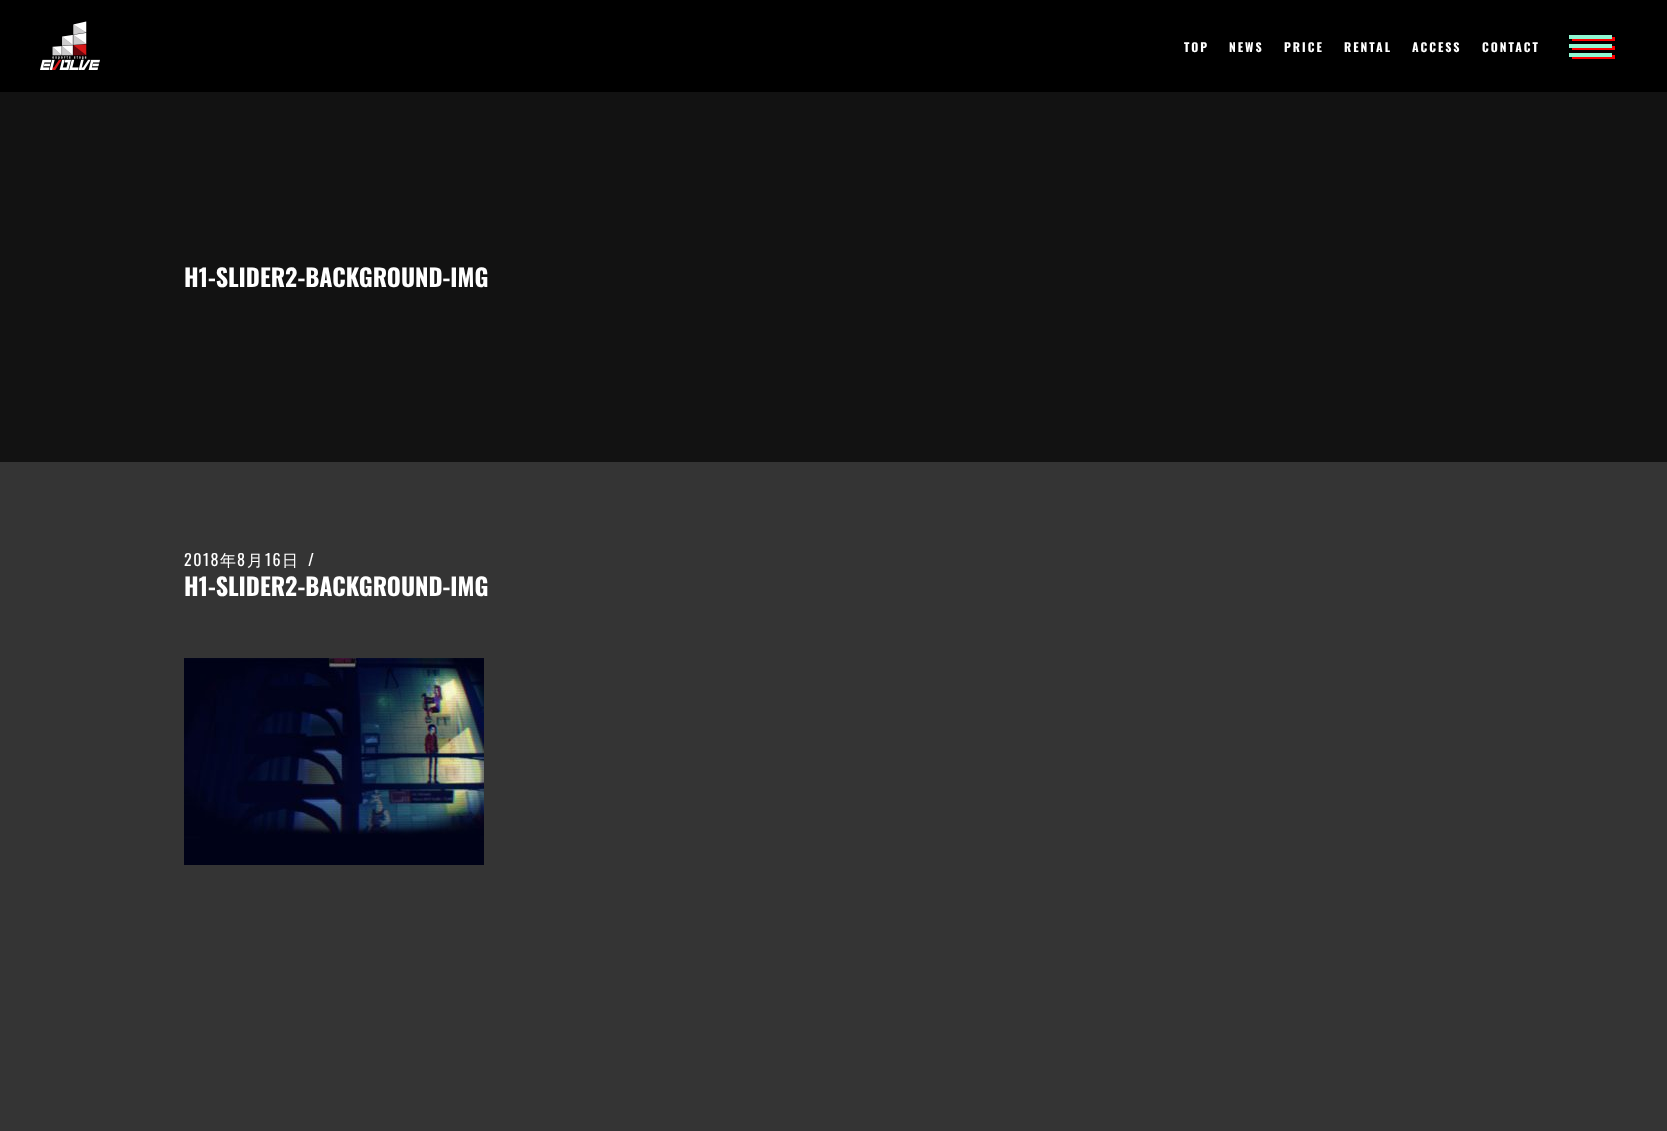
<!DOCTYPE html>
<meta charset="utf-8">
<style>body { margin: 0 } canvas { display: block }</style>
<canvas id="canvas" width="1667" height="1131"></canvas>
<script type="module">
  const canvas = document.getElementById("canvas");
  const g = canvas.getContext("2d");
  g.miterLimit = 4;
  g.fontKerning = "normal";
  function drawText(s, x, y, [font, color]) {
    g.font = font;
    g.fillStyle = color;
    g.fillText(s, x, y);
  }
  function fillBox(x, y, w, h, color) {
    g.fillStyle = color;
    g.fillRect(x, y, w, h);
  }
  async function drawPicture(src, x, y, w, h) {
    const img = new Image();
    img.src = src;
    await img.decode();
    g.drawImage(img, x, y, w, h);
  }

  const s1 = ["bold 12px Oswald", "#FFFFFF"];
  const s2 = ["bold 24px Oswald", "#FFFFFF"];
  const s3 = ["16px Oswald", "#FFFFFF"];
  const s4 = ["500 16px WenQuanYi Zen Hei", "#FFFFFF"];

  fillBox(0, 0, 1667, 1131, "#343434");
  fillBox(0, 0, 1667, 92, "#000000");
  await drawPicture("pic1.png", 40, 21, 60, 49);
  g.letterSpacing = "2px";
  drawText("TOP", 1184, 52, s1);
  drawText("NEWS", 1229, 52, s1);
  drawText("PRICE", 1284, 52, s1);
  drawText("RENTAL", 1344, 52, s1);
  drawText("ACCESS", 1412, 52, s1);
  drawText("CONTACT", 1482, 52, s1);
  fillBox(1572, 37, 43, 4, "#FF0000");
  fillBox(1569, 35, 43, 4, "#8EF8D2");
  fillBox(1572, 46, 43, 4, "#FF0000");
  fillBox(1569, 44, 43, 4, "#8EF8D2");
  fillBox(1572, 55, 43, 4, "#FF0000");
  fillBox(1569, 53, 43, 4, "#8EF8D2");
  fillBox(0, 92, 1667, 370, "#121212");
  g.letterSpacing = "0px";
  drawText("H1-SLIDER2-BACKGROUND-IMG", 184, 287, s2);
  g.letterSpacing = "1.5px";
  drawText("2018", 184, 566, s3);
  drawText("年", 220, 566, s4);
  drawText("8", 237, 566, s3);
  drawText("月", 247, 566, s4);
  drawText("16", 265, 566, s3);
  drawText("日", 282, 566, s4);
  drawText("/", 308, 566, s3);
  g.letterSpacing = "0px";
  drawText("H1-SLIDER2-BACKGROUND-IMG", 184, 596, s2);
  await drawPicture("pic2.png", 184, 658, 300, 207);
</script>
